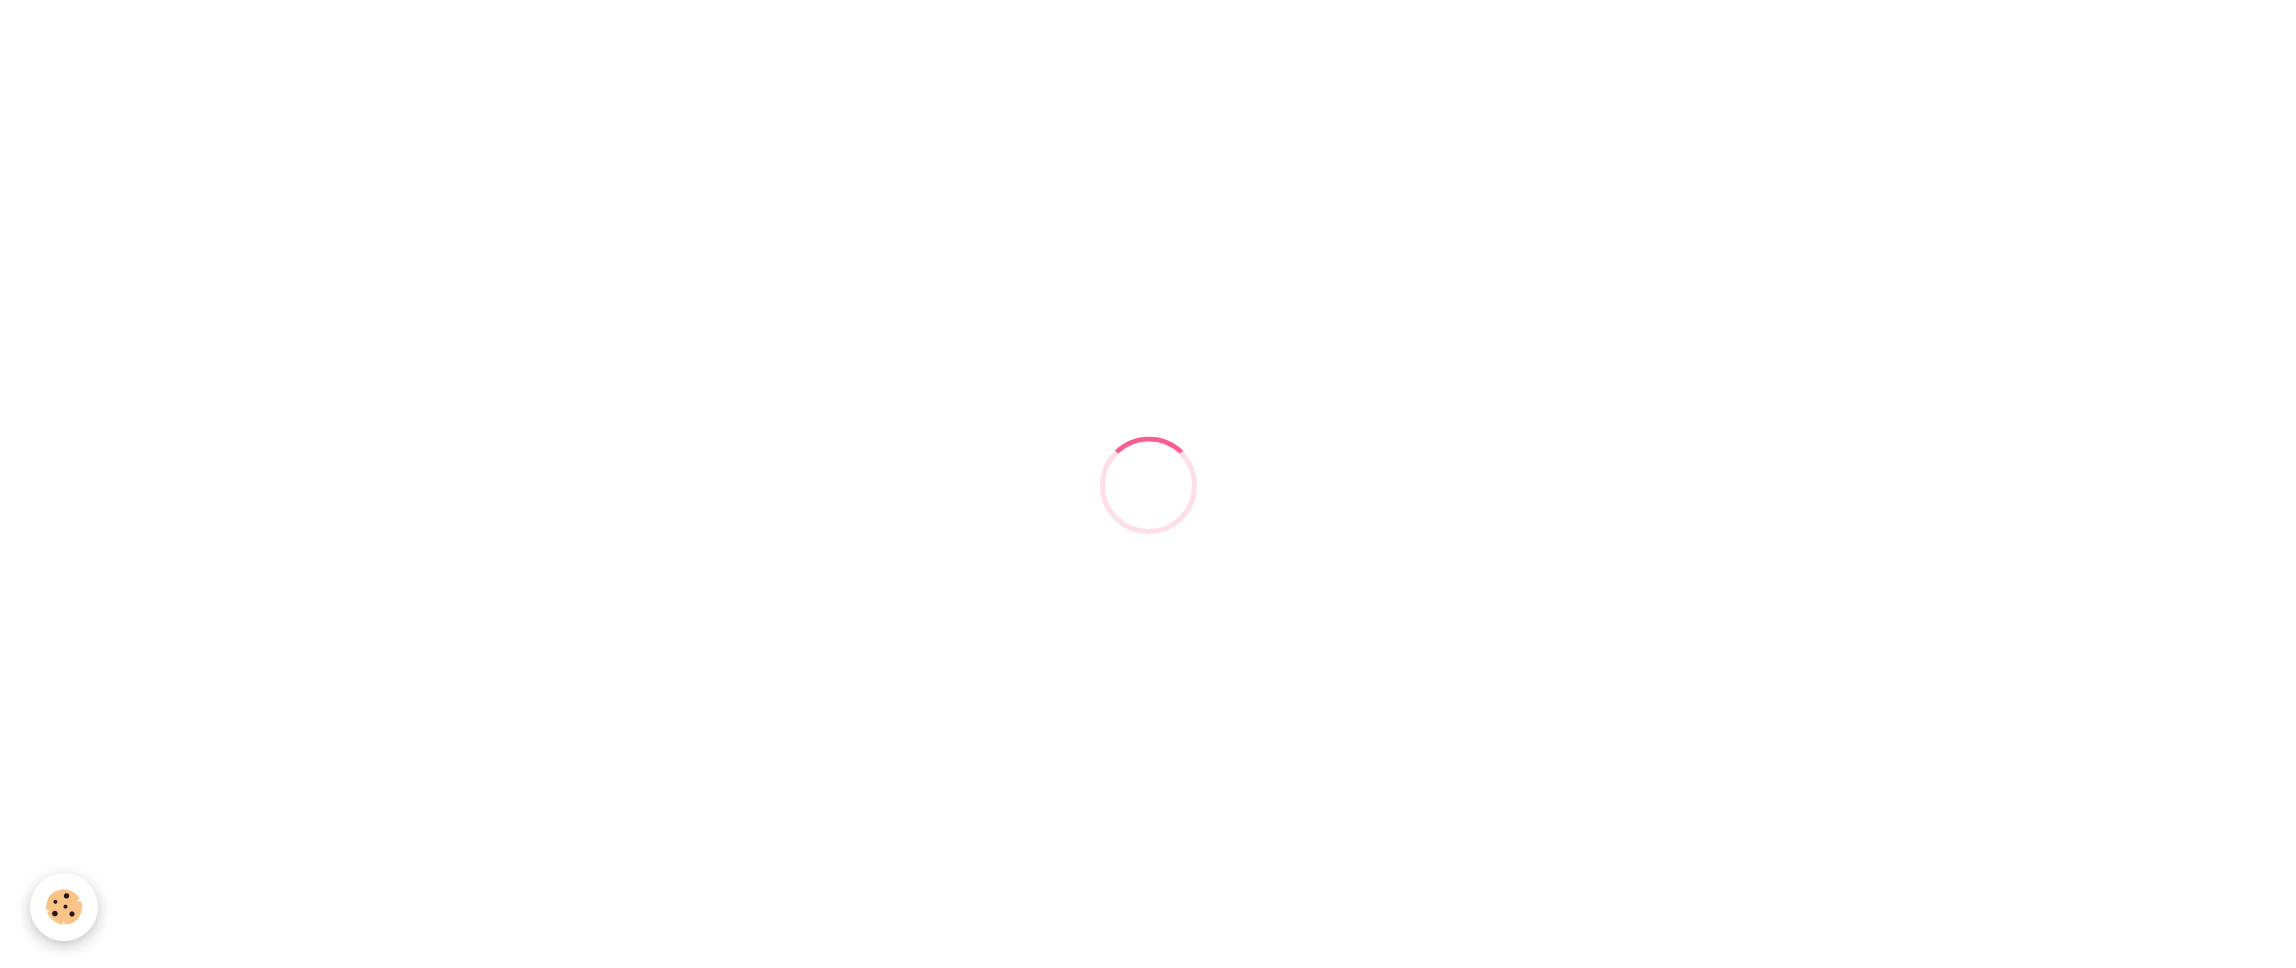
<!DOCTYPE html>
<meta charset="utf-8">
<style>body { margin: 0 } canvas { display: block }</style>
<canvas id="canvas" width="2296" height="968"></canvas>
<script type="module">
  const canvas = document.getElementById("canvas");
  const g = canvas.getContext("2d");
  g.miterLimit = 4;
  g.fontKerning = "normal";
  function fillBox(x, y, w, h, color) {
    g.fillStyle = color;
    g.fillRect(x, y, w, h);
  }
  async function drawPicture(src, x, y, w, h) {
    const img = new Image();
    img.src = src;
    await img.decode();
    g.drawImage(img, x, y, w, h);
  }

  fillBox(0, 0, 2296, 968, "#FFFFFF");
  g.beginPath();
  g.moveTo(1116.5, 452);
  g.bezierCurveTo(1134.5, 434.5, 1163.5, 434.5, 1181.5, 452);
  g.strokeStyle = "#F85D8F";
  g.lineWidth = 4.5;
  g.stroke();
  g.beginPath();
  g.arc(1148.5, 485.5, 46, 0, Math.PI * 2);
  g.strokeStyle = "rgba(248, 93, 143, 0.2)";
  g.lineWidth = 5;
  g.stroke();
  g.fillStyle = "rgba(0, 0, 0, 0.24)";
  g.filter = "blur(7.5px)";
  g.beginPath();
  g.roundRect(30, 878, 68, 67, 33.5);
  g.fill();
  g.filter = "none";
  g.fillStyle = "#FFFFFF";
  g.beginPath();
  g.arc(64, 907, 34, 0, Math.PI * 2);
  g.fill();
  await drawPicture("pic1.png", 46, 889, 37, 36);
</script>
